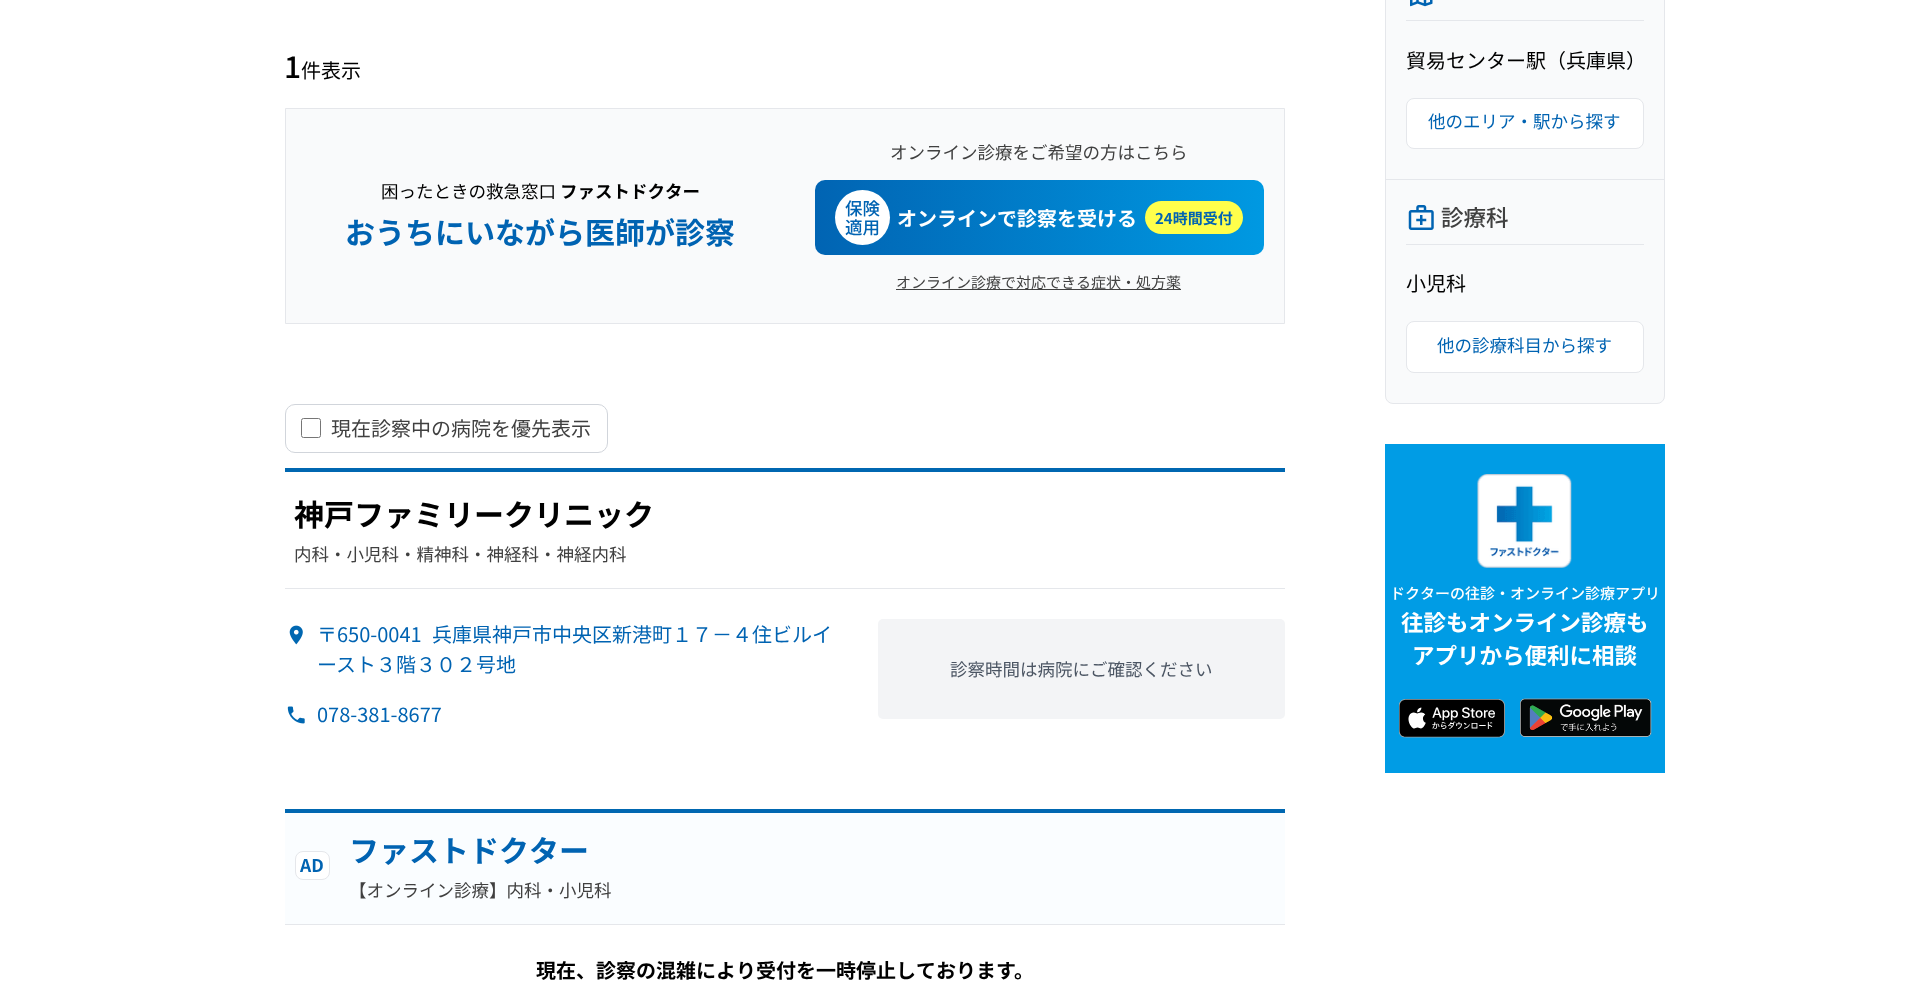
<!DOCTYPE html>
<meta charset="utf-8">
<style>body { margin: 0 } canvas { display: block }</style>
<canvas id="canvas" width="1928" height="1002"></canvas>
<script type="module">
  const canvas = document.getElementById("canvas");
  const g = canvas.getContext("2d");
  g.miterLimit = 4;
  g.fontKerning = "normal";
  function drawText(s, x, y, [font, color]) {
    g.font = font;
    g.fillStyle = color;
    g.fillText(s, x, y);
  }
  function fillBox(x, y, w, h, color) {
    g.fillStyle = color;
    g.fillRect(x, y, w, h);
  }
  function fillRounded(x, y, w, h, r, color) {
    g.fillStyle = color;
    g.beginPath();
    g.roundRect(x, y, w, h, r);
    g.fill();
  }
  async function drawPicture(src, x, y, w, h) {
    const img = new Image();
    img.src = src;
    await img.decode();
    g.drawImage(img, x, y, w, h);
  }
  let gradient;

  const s1 = ["500 30px Noto Sans JP", "#000000"];
  const s2 = ["20px Noto Sans JP", "#000000"];
  const s3 = ["17.5px Noto Sans JP", "#000000"];
  const s4 = ["bold 17.5px Noto Sans JP", "#000000"];
  const s5 = ["bold 30px Noto Sans JP", "#0063B2"];
  const s6 = ["17.5px Noto Sans JP", "#404040"];
  const s7 = ["500 17.5px Noto Sans JP", "#0063B2"];
  const s8 = ["bold 20px Noto Sans JP", "#FFFFFF"];
  const s9 = ["bold 15px Noto Sans JP", "#0063B2"];
  const s10 = ["15px Noto Sans JP", "#404040"];
  const s11 = ["20px 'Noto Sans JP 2'", "#404040"];
  const s12 = ["bold 30px Noto Sans JP", "#000000"];
  const s13 = ["20px Noto Sans JP", "#0063B2"];
  const s14 = ["17.5px Noto Sans JP", "#4B5563"];
  const s15 = ["bold 17.5px Noto Sans JP", "#0063B2"];
  const s16 = ["bold 20px Noto Sans JP", "#000000"];
  const s17 = ["17.5px Noto Sans JP", "#0063B2"];
  const s18 = ["500 22.5px Noto Sans JP", "#404040"];
  const s19 = ["500 15px Noto Sans JP", "#FFFFFF"];
  const s20 = ["bold 22.5px Noto Sans JP", "#FFFFFF"];

  fillBox(0, 0, 1928, 1002, "#FFFFFF");
  drawText("1", 284, 78, s1);
  drawText("件表示", 301, 78, s2);
  g.fillStyle = "#F9FAFB";
  g.beginPath();
  g.rect(285.5, 108.5, 999, 215);
  g.fill();
  g.strokeStyle = "#E5E7EB";
  g.stroke();
  drawText("困ったときの救急窓口", 381, 198, s3);
  drawText("ファストドクター", 560, 198, s4);
  drawText("おうちにいながら医師が診察", 345, 244, s5);
  drawText("オンライン診療をご希望の方はこちら", 890, 159, s6);
  gradient = g.createLinearGradient(815, 218, 1264, 218);
  gradient.addColorStop(0, "#0164B3");
  gradient.addColorStop(1, "#0099E2");
  g.fillStyle = gradient;
  g.beginPath();
  g.roundRect(815, 180, 449, 75, 10);
  g.fill();
  g.fillStyle = "#FFFFFF";
  g.beginPath();
  g.arc(862.5, 217.5, 27.5, 0, Math.PI * 2);
  g.fill();
  drawText("保険", 845, 215, s7);
  drawText("適用", 845, 234, s7);
  drawText("オンラインで診察を受ける", 897, 226, s8);
  fillRounded(1145, 201, 98, 33, 16.5, "#FFFF4B");
  drawText("24時間受付", 1155, 224, s9);
  fillBox(896, 289, 285, 1, "#404040");
  drawText("オンライン診療で対応できる症状・処方薬", 896, 288, s10);
  g.beginPath();
  g.roundRect(285.5, 404.5, 322, 48, 9.5);
  g.strokeStyle = "#D1D5DB";
  g.stroke();
  g.beginPath();
  g.roundRect(301.5, 418.5, 19, 19, 2);
  g.strokeStyle = "#767676";
  g.stroke();
  drawText("現在診察中の病院を優先表示", 331, 436, s11);
  fillBox(285, 468, 1000, 4, "#0067B1");
  fillBox(285, 588, 1000, 1, "#E5E7EB");
  drawText("神戸ファミリークリニック", 294, 526, s12);
  drawText("内科・小児科・精神科・神経科・神経内科", 294, 561, s6);
  await drawPicture("pic1.png", 289, 625, 14, 20);
  drawText("〒650-0041", 317, 642, s13);
  drawText("兵庫県神戸市中央区新港町１７－４住ビルイ", 432, 642, s13);
  drawText("ースト３階３０２号地", 317, 672, s13);
  await drawPicture("pic2.png", 287, 706, 18, 18);
  drawText("078-381-8677", 317, 722, s13);
  fillRounded(878, 619, 407, 100, 5, "#F3F4F6");
  drawText("診察時間は病院にご確認ください", 950, 676, s14);
  fillBox(285, 809, 1000, 4, "#0067B1");
  fillBox(285, 813, 1000, 111, "#FAFDFF");
  fillBox(285, 924, 1000, 1, "#E5E7EB");
  g.fillStyle = "#FFFFFF";
  g.beginPath();
  g.roundRect(295.5, 851.5, 34, 28, 7.5);
  g.fill();
  g.strokeStyle = "#E5E7EB";
  g.stroke();
  drawText("AD", 300, 872, s15);
  drawText("ファストドクター", 349, 862, s5);
  drawText("【オンライン診療】内科・小児科", 349, 897, s6);
  drawText("現在、診察の混雑により受付を一時停止しております。", 536, 978, s16);
  g.fillStyle = "#F9FAFB";
  g.beginPath();
  g.roundRect(1385.5, -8.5, 279, 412, 7.5);
  g.fill();
  g.stroke();
  fillBox(1406, 20, 238, 1, "#E5E7EB");
  await drawPicture("pic3.png", 1410, 0, 23, 7);
  drawText("貿易センター駅（兵庫県）", 1406, 68, s2);
  g.fillStyle = "#FFFFFF";
  g.beginPath();
  g.roundRect(1406.5, 98.5, 237, 50, 7.5);
  g.fill();
  g.stroke();
  drawText("他のエリア・駅から探す", 1428, 128, s17);
  fillBox(1386, 179, 278, 1, "#E5E7EB");
  fillBox(1406, 244, 238, 1, "#E5E7EB");
  await drawPicture("pic4.png", 1408, 205, 26, 25);
  drawText("診療科", 1441, 226, s18);
  drawText("小児科", 1406, 291, s2);
  g.fillStyle = "#FFFFFF";
  g.beginPath();
  g.roundRect(1406.5, 321.5, 237, 51, 7.5);
  g.fill();
  g.stroke();
  drawText("他の診療科目から探す", 1437, 352, s17);
  fillBox(1385, 444, 280, 329, "#009CE5");
  await drawPicture("pic5.png", 1477, 474, 95, 94);
  drawText("ドクターの往診・オンライン診療アプリ", 1390, 599, s19);
  drawText("往診もオンライン診療も", 1401, 631, s20);
  drawText("アプリから便利に相談", 1412, 664, s20);
  await drawPicture("pic6.png", 1399, 699, 106, 39);
  await drawPicture("pic7.png", 1520, 698, 132, 39);
</script>
